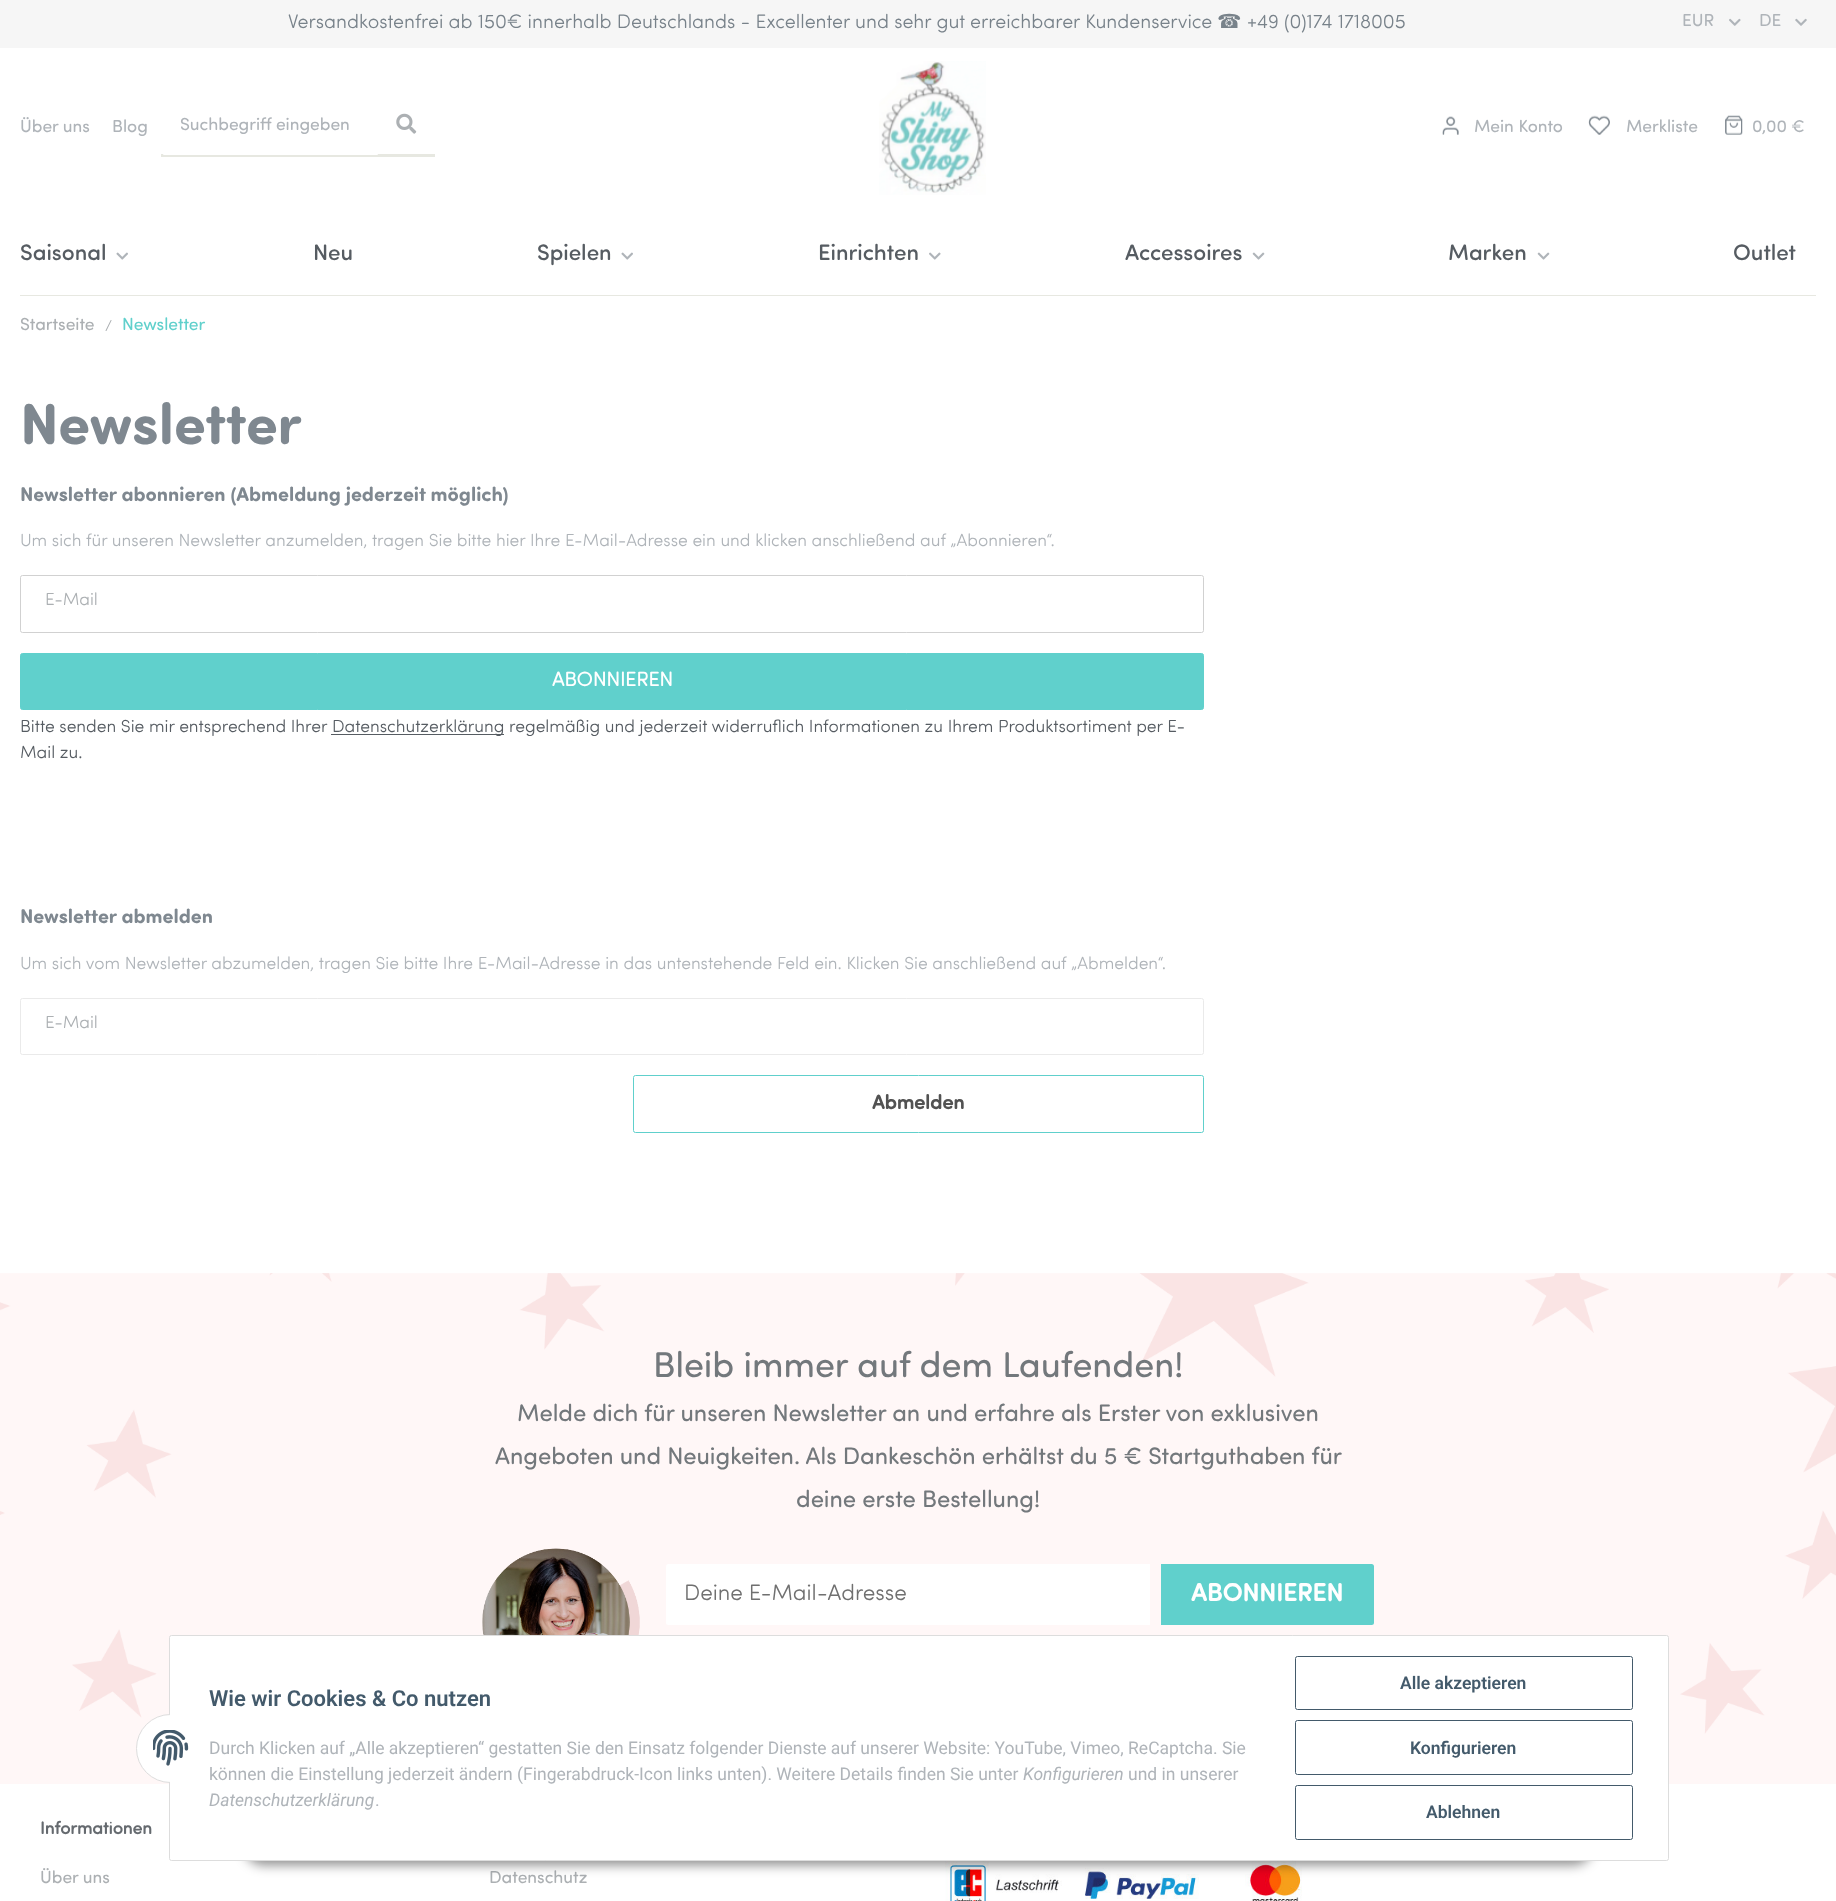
<!DOCTYPE html>
<meta charset="utf-8">
<style>body { margin: 0 } canvas { display: block }</style>
<canvas id="canvas" width="1836" height="1901"></canvas>
<script type="module">
  const canvas = document.getElementById("canvas");
  const g = canvas.getContext("2d");
  g.miterLimit = 4;
  g.fontKerning = "normal";
  function drawText(s, x, y, [font, color]) {
    g.font = font;
    g.fillStyle = color;
    g.fillText(s, x, y);
  }
  function fillBox(x, y, w, h, color) {
    g.fillStyle = color;
    g.fillRect(x, y, w, h);
  }
  function fillRounded(x, y, w, h, r, color) {
    g.fillStyle = color;
    g.beginPath();
    g.roundRect(x, y, w, h, r);
    g.fill();
  }
  async function drawPicture(src, x, y, w, h) {
    const img = new Image();
    img.src = src;
    await img.decode();
    g.drawImage(img, x, y, w, h);
  }

  const s1 = ["300 19.7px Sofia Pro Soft", "#78828A"];
  const s2 = ["19.7px DejaVu Sans", "#78828A"];
  const s3 = ["17.5px Sofia Pro Soft", "#AFB4B9"];
  const s4 = ["500 22.5px Sofia Pro Soft", "#565C62"];
  const s5 = ["17.5px Sofia Pro Soft", "#ACB0B3"];
  const s6 = ["300 16px Sofia Pro Soft", "#ACB0B3"];
  const s7 = ["17.5px Sofia Pro Soft", "#60D0CC"];
  const s8 = ["bold 58px Sofia Pro Soft", "#7F8890"];
  const s9 = ["bold 20px Sofia Pro Soft", "#7F8890"];
  const s10 = ["300 17.5px Sofia Pro Soft", "#AFB4B9"];
  const s11 = ["300 17.5px Sofia Pro Soft", "#ACB0B3"];
  const s12 = ["bold 20px 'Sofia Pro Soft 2'", "#FFFFFF"];
  const s13 = ["300 17.5px Sofia Pro Soft", "#565C62"];
  const s14 = ["bold 20px 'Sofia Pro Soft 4'", "#525252"];
  const s15 = ["36px Sofia Pro Soft", "#73787C"];
  const s16 = ["24px Sofia Pro Soft", "#73787C"];
  const s17 = ["300 22.5px Sofia Pro Soft", "#707070"];
  const s18 = ["bold 25px 'Sofia Pro Soft 4'", "#FFFFFF"];
  const s19 = ["bold 17.5px 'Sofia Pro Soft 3'", "#656A6F"];
  const s20 = ["600 22px Roboto", "#435A6B"];
  const s21 = ["17.5px Roboto", "#AFB4B9"];
  const s22 = ["italic 17.5px Roboto", "#AFB4B9"];
  const s23 = ["600 17.5px Roboto", "#435A6B"];

  fillBox(0, 0, 1836, 1901, "#FFFFFF");
  fillBox(0, 0, 1836, 48, "#F6F6F6");
  drawText("Versandkostenfrei ab 150€ innerhalb Deutschlands - Excellenter und sehr gut erreichbarer Kundenservice", 288, 28, s1);
  drawText("☎", 1217, 28, s2);
  drawText("+49 (0)174 1718005", 1247, 28, s1);
  drawText("EUR", 1682, 26, s3);
  await drawPicture("pic1.png", 1729, 18, 12, 8);
  drawText("DE", 1759, 26, s3);
  await drawPicture("pic2.png", 1795, 18, 12, 8);
  drawText("Über uns", 20, 132, s3);
  drawText("Blog", 112, 132, s3);
  fillBox(161, 154, 274, 3, "#E7E8E1");
  fillRounded(163, 100, 215, 55, 1, "#FFFFFF");
  drawText("Suchbegriff eingeben", 180, 130, s3);
  await drawPicture("pic3.png", 396, 113, 21, 21);
  await drawPicture("pic4.png", 879, 61, 107, 134);
  await drawPicture("pic5.png", 1442, 116, 17, 19);
  drawText("Mein Konto", 1474, 132, s3);
  await drawPicture("pic6.png", 1588, 115, 22, 20);
  drawText("Merkliste", 1626, 132, s3);
  await drawPicture("pic7.png", 1725, 115, 18, 20);
  drawText("0,00 €", 1752, 132, s3);
  fillBox(20, 295, 1796, 1, "#E7E8E1");
  drawText("Saisonal", 20, 260, s4);
  await drawPicture("pic8.png", 116, 252, 12, 8);
  drawText("Neu", 313, 260, s4);
  drawText("Spielen", 537, 260, s4);
  await drawPicture("pic8.png", 621, 252, 12, 8);
  drawText("Einrichten", 818, 260, s4);
  await drawPicture("pic9.png", 929, 252, 12, 8);
  drawText("Accessoires", 1125, 260, s4);
  await drawPicture("pic10.png", 1252, 252, 13, 8);
  drawText("Marken", 1448, 260, s4);
  await drawPicture("pic10.png", 1537, 252, 13, 8);
  drawText("Outlet", 1733, 260, s4);
  drawText("Startseite", 20, 330, s5);
  drawText("/", 105, 331, s6);
  drawText("Newsletter", 122, 330, s7);
  drawText("Newsletter", 20, 444, s8);
  drawText("Newsletter abonnieren (Abmeldung jederzeit möglich)", 20, 501, s9);
  drawText("Um sich für unseren Newsletter anzumelden, tragen Sie bitte hier Ihre E-Mail-Adresse ein und klicken anschließend auf „Abonnieren“.", 20, 546, s10);
  g.beginPath();
  g.roundRect(20.5, 575.5, 1183, 57, 2);
  g.strokeStyle = "#D1D1D1";
  g.stroke();
  drawText("E-Mail", 45, 605, s11);
  g.fillStyle = "#60D0CC";
  g.beginPath();
  g.roundRect(20.5, 653.5, 1183, 56, 2);
  g.fill();
  g.strokeStyle = "#60D0CC";
  g.stroke();
  drawText("ABONNIEREN", 552, 686, s12);
  drawText("Bitte senden Sie mir entsprechend Ihrer", 20, 732, s13);
  fillBox(331, 734, 173, 1, "#565C62");
  drawText("Datenschutzerklärung regelmäßig und jederzeit widerruflich Informationen zu Ihrem Produktsortiment per E-", 332, 732, s13);
  drawText("Mail zu.", 20, 758, s13);
  drawText("Newsletter abmelden", 20, 923, s9);
  drawText("Um sich vom Newsletter abzumelden, tragen Sie bitte Ihre E-Mail-Adresse in das untenstehende Feld ein. Klicken Sie anschließend auf „Abmelden“.", 20, 969, s10);
  g.beginPath();
  g.roundRect(20.5, 998.5, 1183, 56, 2);
  g.strokeStyle = "#EAEAEA";
  g.stroke();
  drawText("E-Mail", 45, 1028, s11);
  g.beginPath();
  g.roundRect(633.5, 1075.5, 570, 57, 2);
  g.strokeStyle = "#60D0CC";
  g.stroke();
  drawText("Abmelden", 872, 1109, s14);
  await drawPicture("pic11.png", 0, 1273, 1836, 511);
  drawText("Bleib immer auf dem Laufenden!", 653, 1377, s15);
  drawText("Melde dich für unseren Newsletter an und erfahre als Erster von exklusiven", 517, 1421, s16);
  drawText("Angeboten und Neuigkeiten. Als Dankeschön erhältst du 5 € Startguthaben für", 495, 1464, s16);
  drawText("deine erste Bestellung!", 796, 1507, s16);
  await drawPicture("pic12.png", 482, 1548, 158, 87);
  g.fillStyle = "#FFFFFF";
  g.beginPath();
  g.roundRect(666, 1564, 484, 61, [2.5, 0, 0, 2.5]);
  g.fill();
  drawText("Deine E-Mail-Adresse", 684, 1600, s17);
  g.fillStyle = "#60D0CC";
  g.beginPath();
  g.roundRect(1161, 1564, 213, 61, [0, 2.5, 2.5, 0]);
  g.fill();
  drawText("ABONNIEREN", 1191, 1601, s18);
  drawText("Informationen", 40, 1834, s19);
  drawText("Über uns", 40, 1883, s5);
  drawText("Datenschutz", 489, 1883, s5);
  await drawPicture("pic13.png", 945, 1861, 117, 40);
  await drawPicture("pic14.png", 1085, 1868, 114, 31);
  await drawPicture("pic15.png", 1245, 1861, 57, 40);
  g.fillStyle = "rgba(0, 0, 0, 0.45)";
  g.filter = "blur(6px)";
  g.beginPath();
  g.roundRect(244, 1825, 1349, 40, 20);
  g.fill();
  g.filter = "none";
  g.fillStyle = "#FFFFFF";
  g.beginPath();
  g.roundRect(169.5, 1635.5, 1499, 225, 2);
  g.fill();
  g.strokeStyle = "#DDDDDD";
  g.stroke();
  g.beginPath();
  g.arc(170.5, 1748.5, 34, 0, Math.PI * 2);
  g.fill();
  g.stroke();
  fillBox(170, 1714, 35, 69, "#FFFFFF");
  await drawPicture("pic16.png", 153, 1730, 36, 36);
  drawText("Wie wir Cookies & Co nutzen", 209, 1706, s20);
  drawText("Durch Klicken auf „Alle akzeptieren“ gestatten Sie den Einsatz folgender Dienste auf unserer Website: YouTube, Vimeo, ReCaptcha. Sie", 209, 1754, s21);
  drawText("können die Einstellung jederzeit ändern (Fingerabdruck-Icon links unten). Weitere Details finden Sie unter", 209, 1780, s21);
  drawText("Konfigurieren", 1023, 1780, s22);
  drawText("und in unserer", 1128, 1780, s21);
  drawText("Datenschutzerklärung", 209, 1806, s22);
  drawText(".", 375, 1806, s21);
  g.beginPath();
  g.roundRect(1295.5, 1656.5, 337, 53, 2);
  g.strokeStyle = "#435A6B";
  g.stroke();
  drawText("Alle akzeptieren", 1400, 1689, s23);
  g.beginPath();
  g.roundRect(1295.5, 1720.5, 337, 54, 2);
  g.stroke();
  drawText("Konfigurieren", 1410, 1754, s23);
  g.beginPath();
  g.roundRect(1295.5, 1785.5, 337, 54, 2);
  g.stroke();
  drawText("Ablehnen", 1426, 1818, s23);
</script>
